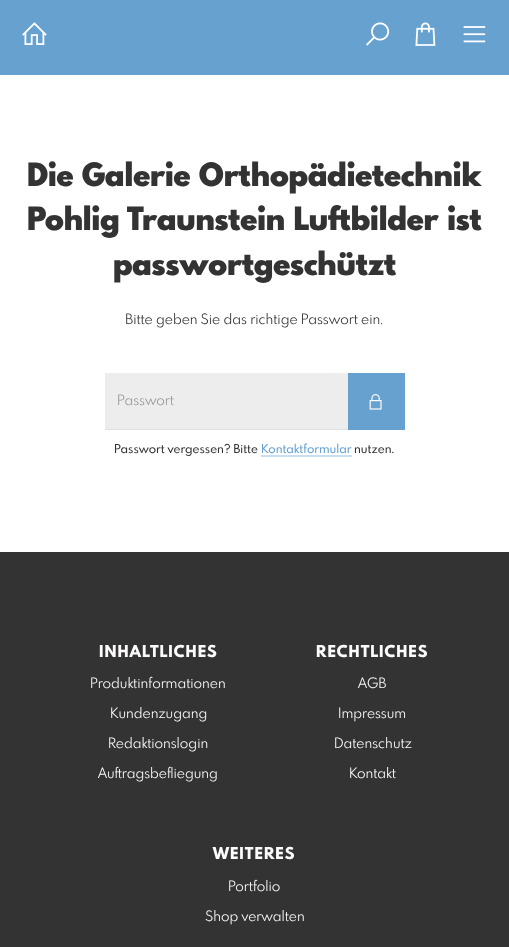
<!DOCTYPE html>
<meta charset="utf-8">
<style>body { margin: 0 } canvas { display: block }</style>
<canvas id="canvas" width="509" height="947"></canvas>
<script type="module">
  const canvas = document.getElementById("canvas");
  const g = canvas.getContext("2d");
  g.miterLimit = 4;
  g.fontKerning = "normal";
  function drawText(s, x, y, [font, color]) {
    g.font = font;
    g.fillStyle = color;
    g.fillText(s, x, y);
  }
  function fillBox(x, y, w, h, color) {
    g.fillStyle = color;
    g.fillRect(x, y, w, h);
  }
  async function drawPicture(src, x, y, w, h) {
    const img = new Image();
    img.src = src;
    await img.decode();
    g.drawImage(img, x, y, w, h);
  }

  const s1 = ["900 31.5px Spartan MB", "#333333"];
  const s2 = ["14px Spartan MB", "#333333"];
  const s3 = ["14px Spartan MB", "#999999"];
  const s4 = ["500 12px Spartan MB", "#333333"];
  const s5 = ["500 12px Spartan MB", "#66A1D0"];
  const s6 = ["800 16px Spartan MB", "#FCFAFA"];
  const s7 = ["14px Spartan MB", "#FCFAFA"];

  fillBox(0, 0, 509, 947, "#333333");
  fillBox(0, 0, 509, 75, "#66A1D0");
  await drawPicture("pic1.png", 22, 22, 25, 23);
  await drawPicture("pic2.png", 366, 22, 24, 24);
  await drawPicture("pic3.png", 415, 22, 21, 24);
  await drawPicture("pic4.png", 463, 26, 23, 17);
  fillBox(0, 75, 509, 477, "#FFFFFF");
  drawText("Die Galerie Orthopädietechnik", 27, 186, s1);
  drawText("Pohlig Traunstein Luftbilder ist", 27, 230, s1);
  drawText("passwortgeschützt", 113, 275, s1);
  drawText("Bitte geben Sie das richtige Passwort ein.", 125, 324, s2);
  fillBox(105, 373, 243, 56, "#EDEDED");
  fillBox(105, 429, 243, 1, "#E0E0E0");
  drawText("Passwort", 117, 405, s3);
  fillBox(348, 373, 57, 57, "#66A1D0");
  await drawPicture("pic5.png", 369, 394, 13, 16);
  drawText("Passwort vergessen? Bitte", 114, 453, s4);
  drawText("Kontaktformular", 261, 453, s5);
  fillBox(261, 455, 91, 2, "#C9DEEF");
  drawText("nutzen.", 354, 453, s4);
  g.letterSpacing = "1px";
  drawText("INHALTLICHES", 99, 657, s6);
  g.letterSpacing = "0px";
  drawText("Produktinformationen", 90, 688, s7);
  drawText("Kundenzugang", 110, 718, s7);
  drawText("Redaktionslogin", 108, 748, s7);
  drawText("Auftragsbefliegung", 98, 778, s7);
  g.letterSpacing = "1px";
  drawText("RECHTLICHES", 316, 657, s6);
  g.letterSpacing = "0px";
  drawText("AGB", 358, 688, s7);
  drawText("Impressum", 338, 718, s7);
  drawText("Datenschutz", 334, 748, s7);
  drawText("Kontakt", 349, 778, s7);
  g.letterSpacing = "1px";
  drawText("WEITERES", 213, 859, s6);
  g.letterSpacing = "0px";
  drawText("Portfolio", 228, 891, s7);
  drawText("Shop verwalten", 205, 921, s7);
</script>
